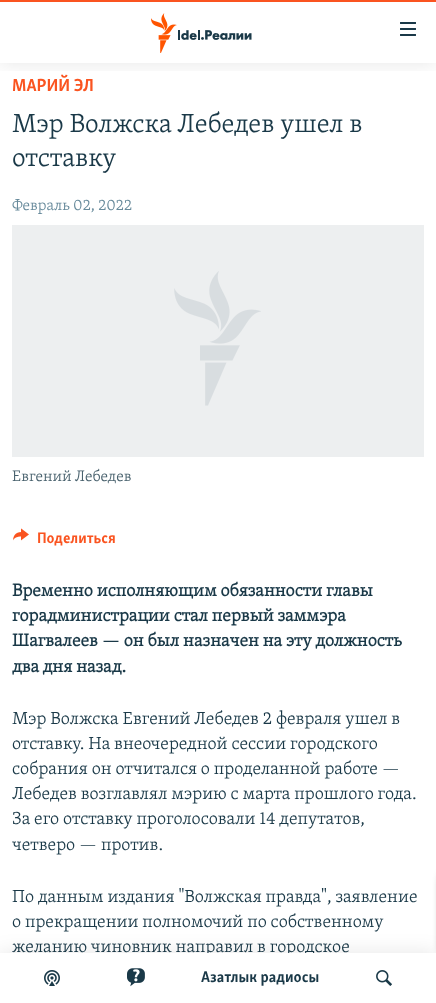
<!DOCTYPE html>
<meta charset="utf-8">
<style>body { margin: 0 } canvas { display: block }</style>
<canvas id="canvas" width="436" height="1003"></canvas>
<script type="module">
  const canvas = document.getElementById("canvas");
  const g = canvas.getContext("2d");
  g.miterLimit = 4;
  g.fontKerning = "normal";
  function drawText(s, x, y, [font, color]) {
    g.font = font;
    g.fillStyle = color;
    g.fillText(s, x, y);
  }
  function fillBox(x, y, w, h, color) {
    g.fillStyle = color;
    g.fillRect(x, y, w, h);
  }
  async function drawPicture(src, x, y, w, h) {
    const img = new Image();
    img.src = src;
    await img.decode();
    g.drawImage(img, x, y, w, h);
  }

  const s1 = ["bold 18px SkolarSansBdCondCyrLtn", "#FA5420"];
  const s2 = ["300 27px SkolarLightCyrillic", "#1A3948"];
  const s3 = ["300 15.75px SkolarLightCyrillic", "#678A9B"];
  const s4 = ["300 15.75px SkolarLightCyrillic", "#48616D"];
  const s5 = ["bold 15.75px SkolarSansBdCondCyrLtn", "#FA5420"];
  const s6 = ["bold 18px SkolarLightCyrillic", "#1A3948"];
  const s7 = ["300 18px SkolarLightCyrillic", "#1A3948"];
  const s8 = ["bold 16px SkolarSansBdCondCyrLtn", "#1A3948"];

  fillBox(0, 0, 436, 1003, "#FFFFFF");
  drawText("МАРИЙ ЭЛ", 12, 91, s1);
  drawText("Мэр Волжска Лебедев ушел в", 12, 132, s2);
  drawText("отставку", 12, 166, s2);
  drawText("Февраль 02, 2022", 12, 210, s3);
  fillBox(12, 225, 412, 232, "#EDEFF0");
  await drawPicture("pic1.png", 174, 271, 87, 135);
  drawText("Евгений Лебедев", 12, 481, s4);
  await drawPicture("pic2.png", 13, 528, 16, 13);
  drawText("Поделиться", 37, 543, s5);
  drawText("Временно исполняющим обязанности главы", 12, 596, s6);
  drawText("горадминистрации стал первый заммэра", 12, 621, s6);
  drawText("Шагвалеев — он был назначен на эту должность", 12, 646, s6);
  drawText("два дня назад.", 12, 672, s6);
  drawText("Мэр Волжска Евгений Лебедев 2 февраля ушел в", 12, 724, s7);
  drawText("отставку. На внеочередной сессии городского", 12, 749, s7);
  drawText("собрания он отчитался о проделанной работе —", 12, 774, s7);
  drawText("Лебедев возглавлял мэрию с марта прошлого года.", 12, 799, s7);
  drawText("За его отставку проголосовали 14 депутатов,", 12, 824, s7);
  drawText("четверо — против.", 12, 850, s7);
  drawText("По данным издания \"Волжская правда\", заявление", 12, 902, s7);
  drawText("о прекращении полномочий по собственному", 12, 927, s7);
  drawText("желанию чиновник направил в городское", 12, 952, s7);
  g.fillStyle = "rgba(0, 0, 0, 0.85)";
  g.filter = "blur(5px)";
  g.beginPath();
  g.roundRect(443, 875, 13, 78, 5);
  g.fill();
  g.filter = "none";
  g.save();
  g.beginPath();
  g.rect(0, 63, 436, 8);
  g.clip();
  g.fillStyle = "rgba(0, 0, 0, 0.1)";
  g.filter = "blur(10px)";
  g.beginPath();
  g.rect(0, 0, 436, 63);
  g.fill();
  g.filter = "none";
  g.restore();
  fillBox(0, 0, 436, 2, "#FA5420");
  await drawPicture("pic3.png", 151, 13, 101, 40);
  await drawPicture("pic4.png", 400, 22, 16, 14);
  g.fillStyle = "rgba(0, 0, 0, 0.1)";
  g.filter = "blur(10px)";
  g.beginPath();
  g.rect(0, 953, 436, 50);
  g.fill();
  g.filter = "none";
  fillBox(0, 953, 436, 50, "#FFFFFF");
  await drawPicture("pic5.png", 44, 970, 16, 16);
  await drawPicture("pic6.png", 127, 968, 18, 19);
  drawText("Aзатлык радиосы", 201, 982, s8);
  await drawPicture("pic7.png", 376, 970, 16, 16);
</script>
